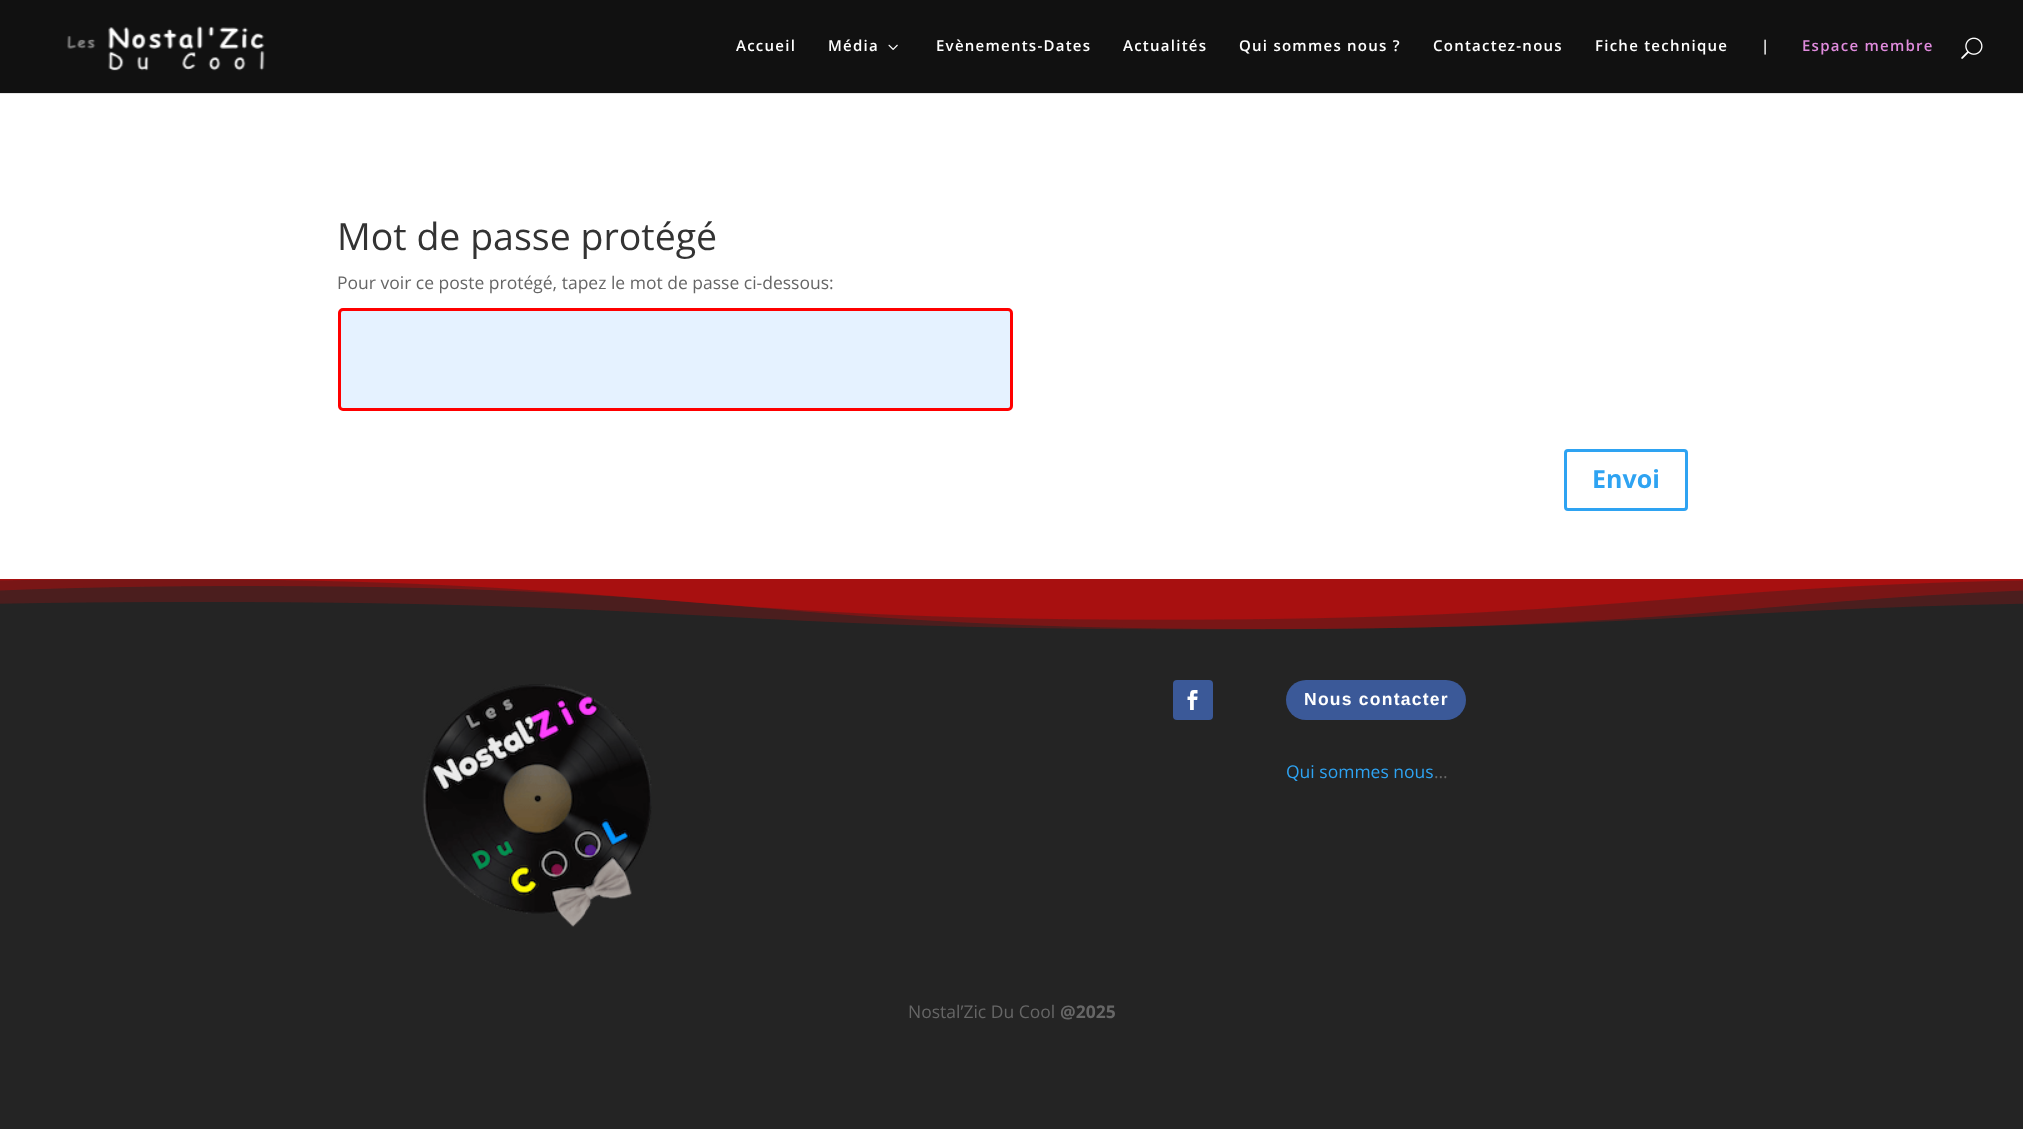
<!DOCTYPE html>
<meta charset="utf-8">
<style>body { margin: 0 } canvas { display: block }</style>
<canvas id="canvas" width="2023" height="1134"></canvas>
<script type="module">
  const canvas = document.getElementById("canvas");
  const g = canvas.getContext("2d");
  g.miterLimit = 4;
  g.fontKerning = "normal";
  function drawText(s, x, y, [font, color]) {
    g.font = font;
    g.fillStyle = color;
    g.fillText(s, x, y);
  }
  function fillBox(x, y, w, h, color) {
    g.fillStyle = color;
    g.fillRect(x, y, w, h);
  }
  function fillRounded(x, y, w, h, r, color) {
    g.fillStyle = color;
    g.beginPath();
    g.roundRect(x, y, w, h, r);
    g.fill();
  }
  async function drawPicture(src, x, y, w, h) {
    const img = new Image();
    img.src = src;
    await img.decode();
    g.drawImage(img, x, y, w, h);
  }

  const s1 = ["600 15px Open Sans", "#FFFFFF"];
  const s2 = ["600 15px Open Sans", "#E08BDD"];
  const s3 = ["37.5px Open Sans", "#333333"];
  const s4 = ["17.5px Open Sans", "#666666"];
  const s5 = ["bold 25px Open Sans", "#2EA3F2"];
  const s6 = ["bold 17.5px Liberation Sans", "#FFFFFF"];
  const s7 = ["17.5px Open Sans", "#2EA3F2"];
  const s8 = ["bold 17.5px Open Sans", "#666666"];

  fillBox(0, 0, 2023, 1134, "#FFFFFF");
  g.fillStyle = "#E6E6E6";
  g.beginPath();
  g.moveTo(0, 92);
  g.lineTo(0, 94);
  g.lineTo(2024, 94);
  g.lineTo(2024, 1);
  g.lineTo(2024, 92);
  g.closePath();
  g.fill();
  fillBox(0, 0, 2023, 93, "#111111");
  await drawPicture("pic1.png", 67, 26, 198, 45);
  g.letterSpacing = "1.25px";
  drawText("Accueil", 736, 51, s1);
  drawText("Média", 828, 51, s1);
  await drawPicture("pic2.png", 888, 44, 10, 6);
  drawText("Evènements-Dates", 936, 51, s1);
  drawText("Actualités", 1123, 51, s1);
  drawText("Qui sommes nous ?", 1239, 51, s1);
  drawText("Contactez-nous", 1433, 51, s1);
  drawText("Fiche technique", 1595, 51, s1);
  drawText("|", 1761, 51, s1);
  drawText("Espace membre", 1802, 51, s2);
  await drawPicture("pic3.png", 1961, 37, 22, 22);
  g.letterSpacing = "0px";
  drawText("Mot de passe protégé", 337, 250, s3);
  drawText("Pour voir ce poste protégé, tapez le mot de passe ci-dessous:", 337, 289, s4);
  g.fillStyle = "#E5F2FF";
  g.beginPath();
  g.roundRect(339.5, 309.5, 672, 100, 3.5);
  g.fill();
  g.strokeStyle = "#FF0000";
  g.lineWidth = 3;
  g.stroke();
  g.beginPath();
  g.roundRect(1565.5, 450.5, 121, 59, 2.5);
  g.strokeStyle = "#2EA3F2";
  g.stroke();
  drawText("Envoi", 1592, 488, s5);
  fillBox(0, 579, 2023, 550, "#242424");
  await drawPicture("pic4.png", 0, 579, 2023, 51);
  await drawPicture("pic5.png", 422, 684, 230, 243);
  fillRounded(1173, 680, 40, 40, 4, "#3B5998");
  await drawPicture("pic6.png", 1187, 690, 11, 20);
  fillRounded(1286, 680, 180, 40, 20, "#3B5998");
  g.letterSpacing = "1.25px";
  drawText("Nous contacter", 1304, 705, s6);
  g.letterSpacing = "0px";
  drawText("Qui sommes nous", 1286, 778, s7);
  drawText("…", 1434, 778, s4);
  drawText("Nostal’Zic Du Cool", 908, 1018, s4);
  drawText("@2025", 1060, 1018, s8);
</script>
